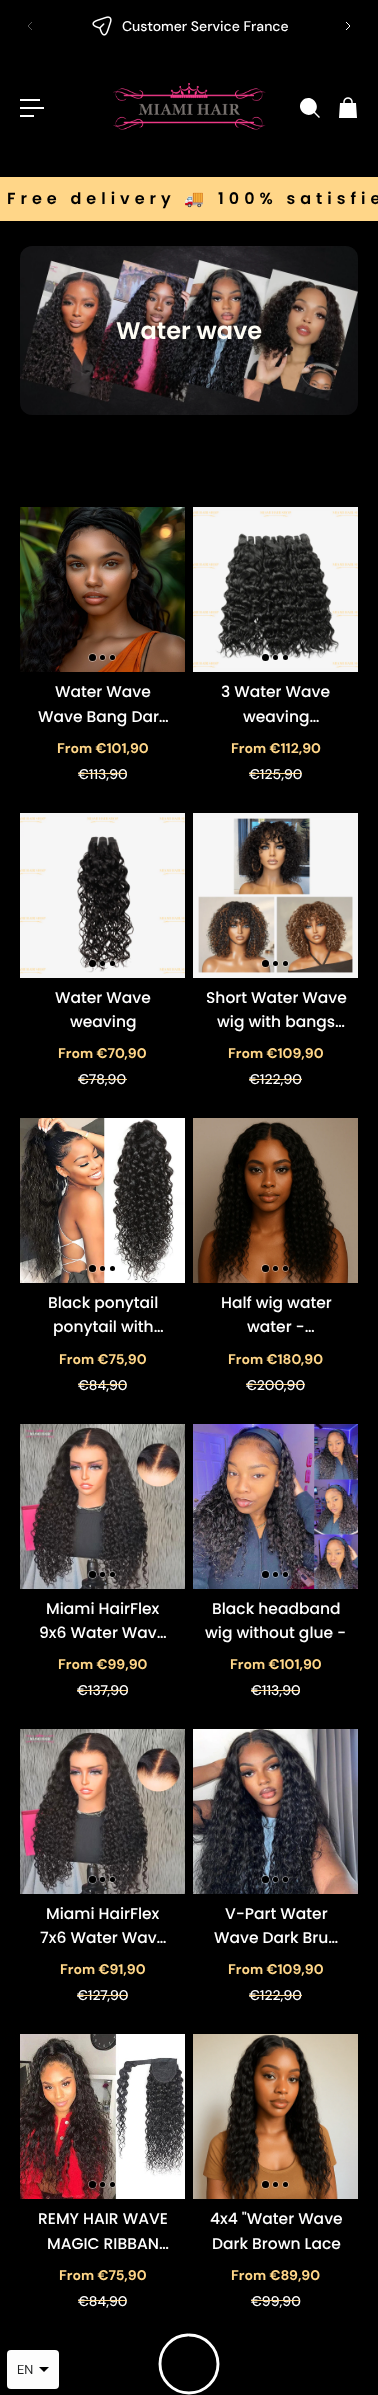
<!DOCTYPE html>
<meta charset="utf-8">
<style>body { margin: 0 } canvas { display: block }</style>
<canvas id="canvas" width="378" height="2395"></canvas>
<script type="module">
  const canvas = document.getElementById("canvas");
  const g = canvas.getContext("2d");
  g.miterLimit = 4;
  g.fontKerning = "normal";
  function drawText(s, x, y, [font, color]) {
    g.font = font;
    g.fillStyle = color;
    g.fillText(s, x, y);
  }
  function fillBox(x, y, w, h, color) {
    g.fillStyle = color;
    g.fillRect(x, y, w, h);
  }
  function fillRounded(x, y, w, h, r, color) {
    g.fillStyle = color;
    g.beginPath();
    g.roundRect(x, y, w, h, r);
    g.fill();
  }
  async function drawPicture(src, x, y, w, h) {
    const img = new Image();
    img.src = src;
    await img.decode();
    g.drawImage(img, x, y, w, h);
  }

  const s1 = ["500 14px DM Sans", "#FFFFFF"];
  const s2 = ["600 16px Poppins", "#000000"];
  const s3 = ["bold 16px Noto Color Emoji", "#000000"];
  const s4 = ["600 24px Poppins", "#FFFDF5"];
  const s5 = ["500 15.5px Poppins", "#FFFFFF"];
  const s6 = ["bold 14px DM Sans", "#FFD688"];
  const s7 = ["13px DM Sans", "#202223"];

  fillBox(0, 0, 378, 2395, "#000000");
  g.beginPath();
  g.moveTo(32, 22);
  g.lineTo(28, 26);
  g.lineTo(32, 30);
  g.strokeStyle = "#595959";
  g.stroke();
  await drawPicture("pic1.png", 92, 16, 20, 20);
  drawText("Customer Service France", 122, 31, s1);
  g.beginPath();
  g.moveTo(346, 22);
  g.lineTo(350, 26);
  g.lineTo(346, 30);
  g.strokeStyle = "#FFFFFF";
  g.stroke();
  fillBox(20, 99, 20, 2, "#FFFFFF");
  fillBox(20, 107, 24, 2, "#FFFFFF");
  fillBox(20, 115, 14, 2, "#FFFFFF");
  await drawPicture("pic2.png", 113, 83, 153, 47);
  g.beginPath();
  g.moveTo(315, 112);
  g.bezierCurveTo(321.5, 104, 310, 93, 302.5, 100.5);
  g.bezierCurveTo(295, 108, 306, 119.5, 314, 113);
  g.lineTo(319, 118);
  g.lineTo(320, 117);
  g.closePath();
  g.fill();
  await drawPicture("pic3.png", 339, 97, 18, 21);
  fillBox(0, 177, 378, 44, "#FFD688");
  g.letterSpacing = "5px";
  drawText("Free delivery", 7, 204, s2);
  drawText("🚚", 184, 204, s3);
  drawText("100% satisfie", 218, 204, s2);
  await drawPicture("pic4.png", 20, 246, 338, 169);
  fillRounded(20, 246, 338, 169, 12, "rgba(34, 34, 34, 0.1)");
  g.letterSpacing = "0px";
  drawText("Water wave", 116, 339, s4);
  await drawPicture("pic5.png", 20, 507, 165, 165);
  g.beginPath();
  g.arc(92.5, 657.5, 4, 0, Math.PI * 2);
  g.strokeStyle = "rgba(255, 255, 255, 0.4)";
  g.stroke();
  g.fillStyle = "#000000";
  g.beginPath();
  g.arc(92.5, 657.5, 3.5, 0, Math.PI * 2);
  g.fill();
  g.beginPath();
  g.arc(102.5, 657.5, 3, 0, Math.PI * 2);
  g.stroke();
  g.beginPath();
  g.arc(102.5, 657.5, 2.5, 0, Math.PI * 2);
  g.fill();
  g.beginPath();
  g.arc(112.5, 657.5, 3, 0, Math.PI * 2);
  g.stroke();
  g.beginPath();
  g.arc(112.5, 657.5, 2.5, 0, Math.PI * 2);
  g.fill();
  drawText("Water Wave", 55, 697, s5);
  drawText("Wave Bang Dar…", 38, 722, s5);
  drawText("From €101,90", 57, 753, s6);
  drawText("€113,90", 78, 779, s1);
  fillBox(78, 773, 49, 1, "#FFD688");
  fillBox(193, 507, 165, 165, "#F5F5F5");
  await drawPicture("pic6.png", 193, 511, 165, 157);
  g.beginPath();
  g.arc(265.5, 657.5, 4, 0, Math.PI * 2);
  g.stroke();
  g.fillStyle = "#000000";
  g.beginPath();
  g.arc(265.5, 657.5, 3.5, 0, Math.PI * 2);
  g.fill();
  g.beginPath();
  g.arc(275.5, 657.5, 3, 0, Math.PI * 2);
  g.stroke();
  g.beginPath();
  g.arc(275.5, 657.5, 2.5, 0, Math.PI * 2);
  g.fill();
  g.beginPath();
  g.arc(285.5, 657.5, 3, 0, Math.PI * 2);
  g.stroke();
  g.beginPath();
  g.arc(285.5, 657.5, 2.5, 0, Math.PI * 2);
  g.fill();
  drawText("3 Water Wave", 221, 697, s5);
  drawText("weaving…", 243, 722, s5);
  drawText("From €112,90", 231, 753, s6);
  drawText("€125,90", 249, 779, s1);
  fillBox(249, 773, 53, 1, "#FFD688");
  fillBox(20, 813, 165, 165, "#F5F5F5");
  await drawPicture("pic7.png", 20, 817, 165, 157);
  g.beginPath();
  g.arc(92.5, 963.5, 4, 0, Math.PI * 2);
  g.stroke();
  g.fillStyle = "#000000";
  g.beginPath();
  g.arc(92.5, 963.5, 3.5, 0, Math.PI * 2);
  g.fill();
  g.beginPath();
  g.arc(102.5, 963.5, 3, 0, Math.PI * 2);
  g.stroke();
  g.beginPath();
  g.arc(102.5, 963.5, 2.5, 0, Math.PI * 2);
  g.fill();
  g.beginPath();
  g.arc(112.5, 963.5, 3, 0, Math.PI * 2);
  g.stroke();
  g.beginPath();
  g.arc(112.5, 963.5, 2.5, 0, Math.PI * 2);
  g.fill();
  drawText("Water Wave", 55, 1003, s5);
  drawText("weaving", 70, 1027, s5);
  drawText("From €70,90", 58, 1058, s6);
  drawText("€78,90", 78, 1084, s1);
  fillBox(78, 1079, 49, 1, "#FFD688");
  fillBox(193, 813, 165, 165, "#F5F5F5");
  await drawPicture("pic8.png", 198, 818, 155, 155);
  g.beginPath();
  g.arc(265.5, 963.5, 4, 0, Math.PI * 2);
  g.stroke();
  g.fillStyle = "#000000";
  g.beginPath();
  g.arc(265.5, 963.5, 3.5, 0, Math.PI * 2);
  g.fill();
  g.beginPath();
  g.arc(275.5, 963.5, 3, 0, Math.PI * 2);
  g.stroke();
  g.beginPath();
  g.arc(275.5, 963.5, 2.5, 0, Math.PI * 2);
  g.fill();
  g.beginPath();
  g.arc(285.5, 963.5, 3, 0, Math.PI * 2);
  g.stroke();
  g.beginPath();
  g.arc(285.5, 963.5, 2.5, 0, Math.PI * 2);
  g.fill();
  drawText("Short Water Wave", 206, 1003, s5);
  drawText("wig with bangs…", 217, 1027, s5);
  drawText("From €109,90", 228, 1058, s6);
  drawText("€122,90", 249, 1084, s1);
  fillBox(249, 1079, 53, 1, "#FFD688");
  await drawPicture("pic9.png", 20, 1118, 165, 165);
  g.beginPath();
  g.arc(92.5, 1268.5, 4, 0, Math.PI * 2);
  g.stroke();
  g.fillStyle = "#000000";
  g.beginPath();
  g.arc(92.5, 1268.5, 3.5, 0, Math.PI * 2);
  g.fill();
  g.beginPath();
  g.arc(102.5, 1268.5, 3, 0, Math.PI * 2);
  g.stroke();
  g.beginPath();
  g.arc(102.5, 1268.5, 2.5, 0, Math.PI * 2);
  g.fill();
  g.beginPath();
  g.arc(112.5, 1268.5, 2.5, 0, Math.PI * 2);
  g.fill();
  drawText("Black ponytail", 48, 1308, s5);
  drawText("ponytail with…", 53, 1332, s5);
  drawText("From €75,90", 59, 1364, s6);
  drawText("€84,90", 78, 1390, s1);
  fillBox(78, 1384, 49, 1, "#FFD688");
  await drawPicture("pic10.png", 193, 1118, 165, 165);
  g.beginPath();
  g.arc(265.5, 1268.5, 4, 0, Math.PI * 2);
  g.stroke();
  g.fillStyle = "#000000";
  g.beginPath();
  g.arc(265.5, 1268.5, 3.5, 0, Math.PI * 2);
  g.fill();
  g.beginPath();
  g.arc(275.5, 1268.5, 3, 0, Math.PI * 2);
  g.stroke();
  g.beginPath();
  g.arc(275.5, 1268.5, 2.5, 0, Math.PI * 2);
  g.fill();
  g.beginPath();
  g.arc(285.5, 1268.5, 3, 0, Math.PI * 2);
  g.stroke();
  g.beginPath();
  g.arc(285.5, 1268.5, 2.5, 0, Math.PI * 2);
  g.fill();
  drawText("Half wig water", 221, 1308, s5);
  drawText("water -…", 247, 1332, s5);
  drawText("From €180,90", 228, 1364, s6);
  drawText("€200,90", 246, 1390, s1);
  fillBox(246, 1384, 59, 1, "#FFD688");
  await drawPicture("pic11.png", 20, 1424, 165, 165);
  g.beginPath();
  g.arc(92.5, 1574.5, 4, 0, Math.PI * 2);
  g.stroke();
  g.fillStyle = "#000000";
  g.beginPath();
  g.arc(92.5, 1574.5, 3.5, 0, Math.PI * 2);
  g.fill();
  g.beginPath();
  g.arc(102.5, 1574.5, 3, 0, Math.PI * 2);
  g.stroke();
  g.beginPath();
  g.arc(102.5, 1574.5, 2.5, 0, Math.PI * 2);
  g.fill();
  g.beginPath();
  g.arc(112.5, 1574.5, 3, 0, Math.PI * 2);
  g.stroke();
  g.beginPath();
  g.arc(112.5, 1574.5, 2.5, 0, Math.PI * 2);
  g.fill();
  drawText("Miami HairFlex", 46, 1614, s5);
  drawText("9x6 Water Wav…", 39, 1638, s5);
  drawText("From €99,90", 58, 1669, s6);
  drawText("€137,90", 77, 1695, s1);
  fillBox(77, 1690, 51, 1, "#FFD688");
  await drawPicture("pic12.png", 193, 1424, 165, 165);
  g.beginPath();
  g.arc(265.5, 1574.5, 4, 0, Math.PI * 2);
  g.stroke();
  g.fillStyle = "#000000";
  g.beginPath();
  g.arc(265.5, 1574.5, 3.5, 0, Math.PI * 2);
  g.fill();
  g.beginPath();
  g.arc(275.5, 1574.5, 3, 0, Math.PI * 2);
  g.stroke();
  g.beginPath();
  g.arc(275.5, 1574.5, 2.5, 0, Math.PI * 2);
  g.fill();
  g.beginPath();
  g.arc(285.5, 1574.5, 3, 0, Math.PI * 2);
  g.stroke();
  g.beginPath();
  g.arc(285.5, 1574.5, 2.5, 0, Math.PI * 2);
  g.fill();
  drawText("Black headband", 212, 1614, s5);
  drawText("wig without glue -", 205, 1638, s5);
  drawText("From €101,90", 230, 1669, s6);
  drawText("€113,90", 251, 1695, s1);
  fillBox(251, 1690, 49, 1, "#FFD688");
  await drawPicture("pic11.png", 20, 1729, 165, 165);
  g.beginPath();
  g.arc(92.5, 1879.5, 4, 0, Math.PI * 2);
  g.stroke();
  g.fillStyle = "#000000";
  g.beginPath();
  g.arc(92.5, 1879.5, 3.5, 0, Math.PI * 2);
  g.fill();
  g.beginPath();
  g.arc(102.5, 1879.5, 3, 0, Math.PI * 2);
  g.stroke();
  g.beginPath();
  g.arc(102.5, 1879.5, 2.5, 0, Math.PI * 2);
  g.fill();
  g.beginPath();
  g.arc(112.5, 1879.5, 3, 0, Math.PI * 2);
  g.stroke();
  g.beginPath();
  g.arc(112.5, 1879.5, 2.5, 0, Math.PI * 2);
  g.fill();
  drawText("Miami HairFlex", 46, 1919, s5);
  drawText("7x6 Water Wav…", 40, 1943, s5);
  drawText("From €91,90", 60, 1974, s6);
  drawText("€127,90", 77, 2000, s1);
  fillBox(77, 1995, 51, 1, "#FFD688");
  await drawPicture("pic13.png", 193, 1729, 165, 165);
  g.beginPath();
  g.arc(265.5, 1879.5, 4, 0, Math.PI * 2);
  g.stroke();
  g.fillStyle = "#000000";
  g.beginPath();
  g.arc(265.5, 1879.5, 3.5, 0, Math.PI * 2);
  g.fill();
  g.beginPath();
  g.arc(275.5, 1879.5, 3, 0, Math.PI * 2);
  g.stroke();
  g.beginPath();
  g.arc(275.5, 1879.5, 2.5, 0, Math.PI * 2);
  g.fill();
  g.beginPath();
  g.arc(285.5, 1879.5, 3, 0, Math.PI * 2);
  g.stroke();
  g.beginPath();
  g.arc(285.5, 1879.5, 2.5, 0, Math.PI * 2);
  g.fill();
  drawText("V-Part Water", 225, 1919, s5);
  drawText("Wave Dark Bru…", 214, 1943, s5);
  drawText("From €109,90", 228, 1974, s6);
  drawText("€122,90", 249, 2000, s1);
  fillBox(249, 1995, 53, 1, "#FFD688");
  await drawPicture("pic14.png", 20, 2034, 165, 165);
  g.beginPath();
  g.arc(92.5, 2184.5, 4, 0, Math.PI * 2);
  g.stroke();
  g.fillStyle = "#000000";
  g.beginPath();
  g.arc(92.5, 2184.5, 3.5, 0, Math.PI * 2);
  g.fill();
  g.beginPath();
  g.arc(102.5, 2184.5, 3, 0, Math.PI * 2);
  g.stroke();
  g.beginPath();
  g.arc(102.5, 2184.5, 2.5, 0, Math.PI * 2);
  g.fill();
  g.beginPath();
  g.arc(112.5, 2184.5, 3, 0, Math.PI * 2);
  g.stroke();
  g.beginPath();
  g.arc(112.5, 2184.5, 2.5, 0, Math.PI * 2);
  g.fill();
  drawText("REMY HAIR WAVE", 38, 2224, s5);
  drawText("MAGIC RIBBAN…", 47, 2249, s5);
  drawText("From €75,90", 59, 2280, s6);
  drawText("€84,90", 78, 2306, s1);
  fillBox(78, 2300, 49, 1, "#FFD688");
  await drawPicture("pic15.png", 193, 2034, 165, 165);
  g.beginPath();
  g.arc(265.5, 2184.5, 4, 0, Math.PI * 2);
  g.stroke();
  g.fillStyle = "#000000";
  g.beginPath();
  g.arc(265.5, 2184.5, 3.5, 0, Math.PI * 2);
  g.fill();
  g.beginPath();
  g.arc(275.5, 2184.5, 3, 0, Math.PI * 2);
  g.stroke();
  g.beginPath();
  g.arc(275.5, 2184.5, 2.5, 0, Math.PI * 2);
  g.fill();
  g.beginPath();
  g.arc(285.5, 2184.5, 3, 0, Math.PI * 2);
  g.stroke();
  g.beginPath();
  g.arc(285.5, 2184.5, 2.5, 0, Math.PI * 2);
  g.fill();
  drawText("4x4 \"Water Wave", 210, 2224, s5);
  drawText("Dark Brown Lace", 212, 2249, s5);
  drawText("From €89,90", 231, 2280, s6);
  drawText("€99,90", 251, 2306, s1);
  fillBox(251, 2300, 49, 1, "#FFD688");
  g.beginPath();
  g.moveTo(189, 2335);
  g.bezierCurveTo(205, 2335, 218, 2348, 218, 2364);
  g.bezierCurveTo(218, 2380, 205, 2393, 189, 2393);
  g.bezierCurveTo(173, 2393, 160, 2380, 160, 2364);
  g.bezierCurveTo(160, 2348.5, 172, 2335.5, 187.5, 2335);
  g.strokeStyle = "#FFFFFF";
  g.lineWidth = 2.9;
  g.lineCap = "round";
  g.stroke();
  fillRounded(7, 2350, 52, 39, 4, "#FDFDFD");
  drawText("EN", 17, 2374, s7);
  g.fillStyle = "#000000";
  g.beginPath();
  g.moveTo(39, 2367);
  g.lineTo(49, 2367);
  g.lineTo(44, 2372);
  g.closePath();
  g.fill();
</script>
